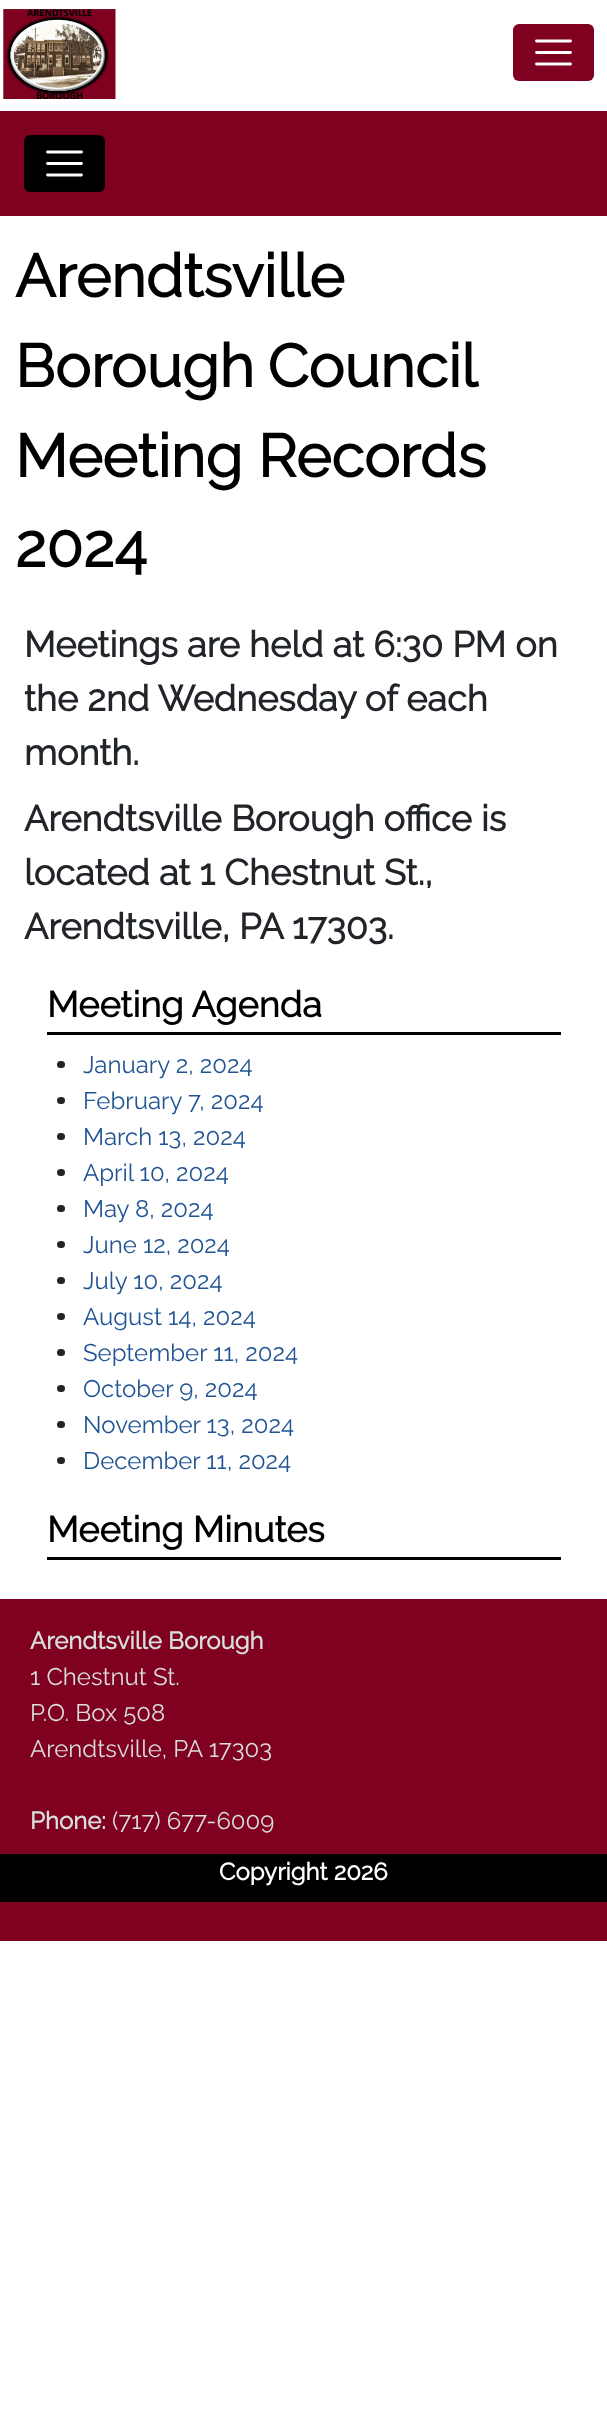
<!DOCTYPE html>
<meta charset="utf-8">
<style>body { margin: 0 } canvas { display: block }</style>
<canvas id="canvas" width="607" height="2428"></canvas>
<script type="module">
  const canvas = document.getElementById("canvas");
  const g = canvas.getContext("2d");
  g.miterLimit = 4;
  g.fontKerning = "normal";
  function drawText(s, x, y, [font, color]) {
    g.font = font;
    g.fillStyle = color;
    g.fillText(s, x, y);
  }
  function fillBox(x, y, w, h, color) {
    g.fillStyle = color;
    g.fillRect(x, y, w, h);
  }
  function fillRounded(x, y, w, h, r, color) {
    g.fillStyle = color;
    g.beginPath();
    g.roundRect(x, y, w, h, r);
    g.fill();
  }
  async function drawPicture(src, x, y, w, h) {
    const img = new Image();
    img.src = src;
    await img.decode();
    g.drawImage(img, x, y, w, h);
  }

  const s1 = ["bold 60px Raleway", "#000000"];
  const s2 = ["bold 36px Raleway", "#212529"];
  const s3 = ["bold 36px Raleway", "#000000"];
  const s4 = ["100 24px Raleway", "#205493"];
  const s5 = ["bold 24px Raleway", "#D7DEDC"];
  const s6 = ["100 24px Raleway", "#D7DEDC"];
  const s7 = ["bold 24px Raleway", "#FFFFFF"];

  fillBox(0, 0, 607, 2428, "#FFFFFF");
  await drawPicture("pic1.png", 3, 9, 113, 90);
  fillRounded(513, 24, 81, 57, 6, "#800020");
  g.beginPath();
  g.moveTo(536.5, 41);
  g.lineTo(570.5, 41);
  g.moveTo(536.5, 52.5);
  g.lineTo(570.5, 52.5);
  g.moveTo(536.5, 64);
  g.lineTo(570.5, 64);
  g.strokeStyle = "#FFFFFF";
  g.lineWidth = 2.8;
  g.lineCap = "round";
  g.stroke();
  fillBox(0, 111, 607, 105, "#800020");
  fillRounded(24, 135, 81, 57, 6, "#000000");
  g.beginPath();
  g.moveTo(47.5, 152);
  g.lineTo(81.5, 152);
  g.moveTo(47.5, 163.5);
  g.lineTo(81.5, 163.5);
  g.moveTo(47.5, 175);
  g.lineTo(81.5, 175);
  g.stroke();
  drawText("Arendtsville", 15, 297, s1);
  g.wordSpacing = "-2px";
  drawText("Borough Council", 15, 387, s1);
  g.wordSpacing = "0px";
  drawText("Meeting Records", 15, 477, s1);
  drawText("2024", 15, 567, s1);
  drawText("Meetings are held at 6:30 PM on", 24, 657, s2);
  drawText("the 2nd Wednesday of each", 24, 711, s2);
  drawText("month.", 24, 765, s2);
  drawText("Arendtsville Borough office is", 24, 831, s2);
  drawText("located at 1 Chestnut St.,", 24, 885, s2);
  drawText("Arendtsville, PA 17303.", 24, 939, s2);
  fillBox(47, 1032, 514, 3, "#000000");
  drawText("Meeting Agenda", 47, 1017, s3);
  fillRounded(57, 1061, 8, 7, 3.5, "#212529");
  drawText("January 2, 2024", 83, 1073, s4);
  fillRounded(57, 1097, 8, 7, 3.5, "#212529");
  drawText("February 7, 2024", 83, 1109, s4);
  fillRounded(57, 1133, 8, 7, 3.5, "#212529");
  drawText("March 13, 2024", 83, 1145, s4);
  fillRounded(57, 1169, 8, 7, 3.5, "#212529");
  drawText("April 10, 2024", 83, 1181, s4);
  fillRounded(57, 1205, 8, 7, 3.5, "#212529");
  drawText("May 8, 2024", 83, 1217, s4);
  fillRounded(57, 1241, 8, 7, 3.5, "#212529");
  drawText("June 12, 2024", 83, 1253, s4);
  fillRounded(57, 1277, 8, 7, 3.5, "#212529");
  drawText("July 10, 2024", 83, 1289, s4);
  fillRounded(57, 1313, 8, 7, 3.5, "#212529");
  drawText("August 14, 2024", 83, 1325, s4);
  fillRounded(57, 1349, 8, 7, 3.5, "#212529");
  drawText("September 11, 2024", 83, 1361, s4);
  fillRounded(57, 1385, 8, 7, 3.5, "#212529");
  drawText("October 9, 2024", 83, 1397, s4);
  fillRounded(57, 1421, 8, 7, 3.5, "#212529");
  drawText("November 13, 2024", 83, 1433, s4);
  fillRounded(57, 1457, 8, 7, 3.5, "#212529");
  drawText("December 11, 2024", 83, 1469, s4);
  fillBox(47, 1557, 514, 3, "#000000");
  drawText("Meeting Minutes", 47, 1542, s3);
  fillBox(0, 1599, 607, 342, "#800020");
  drawText("Arendtsville Borough", 30, 1649, s5);
  drawText("1 Chestnut St.", 30, 1685, s6);
  drawText("P.O. Box 508", 30, 1721, s6);
  drawText("Arendtsville, PA 17303", 30, 1757, s6);
  drawText("Phone:", 30, 1829, s5);
  drawText("(717) 677-6009", 112, 1829, s6);
  fillBox(0, 1854, 607, 48, "#000000");
  drawText("Copyright 2026", 219, 1880, s7);
</script>
